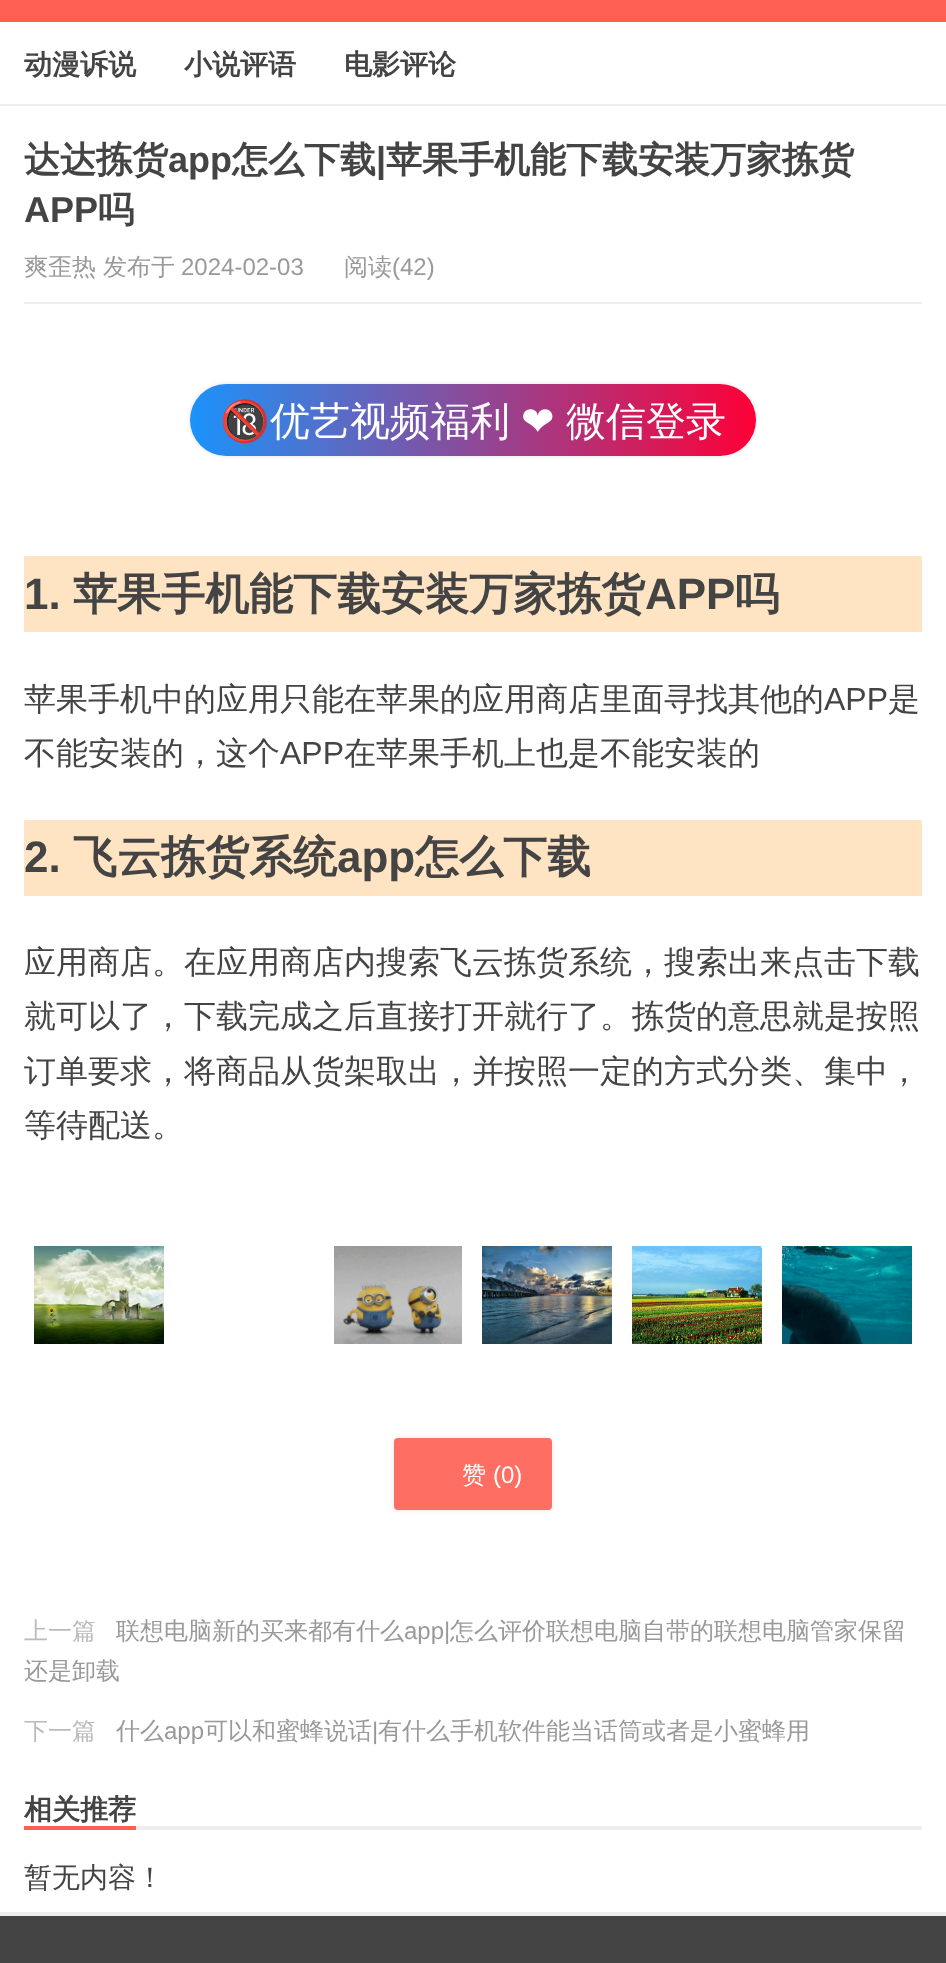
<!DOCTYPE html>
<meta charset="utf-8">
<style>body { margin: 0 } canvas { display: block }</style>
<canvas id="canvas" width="946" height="1963"></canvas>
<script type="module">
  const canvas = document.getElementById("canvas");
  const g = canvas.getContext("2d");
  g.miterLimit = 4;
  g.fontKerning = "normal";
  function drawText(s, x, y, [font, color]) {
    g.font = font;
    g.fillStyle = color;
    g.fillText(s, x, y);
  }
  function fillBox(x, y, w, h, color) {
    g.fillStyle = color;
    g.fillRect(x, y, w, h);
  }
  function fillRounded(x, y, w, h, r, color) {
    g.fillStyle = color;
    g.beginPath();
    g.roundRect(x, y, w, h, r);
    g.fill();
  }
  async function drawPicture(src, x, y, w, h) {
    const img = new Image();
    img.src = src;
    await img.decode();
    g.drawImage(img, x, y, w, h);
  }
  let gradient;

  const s1 = ["bold 28px WenQuanYi Zen Hei", "#444444"];
  const s2 = ["bold 36px WenQuanYi Zen Hei", "#444444"];
  const s3 = ["bold 36px Liberation Sans", "#444444"];
  const s4 = ["500 24px WenQuanYi Zen Hei", "#999999"];
  const s5 = ["24px Liberation Sans", "#999999"];
  const s6 = ["40px Noto Color Emoji", "#FFFFFF"];
  const s7 = ["500 40px WenQuanYi Zen Hei", "#FFFFFF"];
  const s8 = ["40px DejaVu Sans", "#FFFFFF"];
  const s9 = ["bold 44px Liberation Sans", "#444444"];
  const s10 = ["bold 44px WenQuanYi Zen Hei", "#444444"];
  const s11 = ["500 32px WenQuanYi Zen Hei", "#444444"];
  const s12 = ["32px Liberation Sans", "#444444"];
  const s13 = ["500 24px WenQuanYi Zen Hei", "#FFFFFF"];
  const s14 = ["24px Liberation Sans", "#FFFFFF"];
  const s15 = ["500 24px WenQuanYi Zen Hei", "#BBBBBB"];
  const s16 = ["500 28px WenQuanYi Zen Hei", "#444444"];

  fillBox(0, 0, 946, 1963, "#FFFFFF");
  fillBox(0, 0, 946, 22, "#FF5E52");
  drawText("动漫诉说", 24, 74, s1);
  drawText("小说评语", 184, 74, s1);
  drawText("电影评论", 344, 74, s1);
  fillBox(0, 104, 946, 2, "#EEEEEE");
  fillBox(24, 302, 898, 2, "#EEEEEE");
  drawText("达达拣货", 24, 172, s2);
  drawText("app", 168, 172, s3);
  drawText("怎么下载", 232, 172, s2);
  drawText("|", 376, 172, s3);
  drawText("苹果手机能下载安装万家拣货", 386, 172, s2);
  drawText("APP", 24, 222, s3);
  drawText("吗", 98, 222, s2);
  drawText("爽歪热", 24, 275, s4);
  drawText("发布于", 103, 275, s4);
  drawText("2024-02-03", 181, 275, s5);
  drawText("阅读", 344, 275, s4);
  drawText("(42)", 392, 275, s5);
  g.fillStyle = "rgba(0, 0, 0, 0.12)";
  g.filter = "blur(2px)";
  g.beginPath();
  g.roundRect(190, 384, 566, 72, 36);
  g.fill();
  g.filter = "none";
  gradient = g.createLinearGradient(756, 420, 190, 420);
  gradient.addColorStop(0, "#FE0036");
  gradient.addColorStop(1, "#1B93FB");
  g.fillStyle = gradient;
  g.beginPath();
  g.roundRect(190, 384, 566, 72, 36);
  g.fill();
  drawText("🔞", 220, 435, s6);
  drawText("优艺视频福利", 270, 435, s7);
  drawText("❤", 521, 435, s8);
  drawText("微信登录", 566, 435, s7);
  fillBox(24, 556, 898, 76, "#FFE4C4");
  drawText("1.", 24, 609, s9);
  drawText("苹果手机能下载安装万家拣货", 73, 609, s10);
  drawText("APP", 645, 609, s9);
  drawText("吗", 735, 609, s10);
  drawText("苹果手机中的应用只能在苹果的应用商店里面寻找其他的", 24, 710, s11);
  drawText("APP", 824, 710, s12);
  drawText("是", 888, 710, s11);
  drawText("不能安装的，这个", 24, 764, s11);
  drawText("APP", 280, 764, s12);
  drawText("在苹果手机上也是不能安装的", 344, 764, s11);
  fillBox(24, 820, 898, 76, "#FFE4C4");
  drawText("2.", 24, 872, s9);
  drawText("飞云拣货系统", 73, 872, s10);
  drawText("app", 337, 872, s9);
  drawText("怎么下载", 415, 872, s10);
  drawText("应用商店。在应用商店内搜索飞云拣货系统，搜索出来点击下载", 24, 973, s11);
  drawText("就可以了，下载完成之后直接打开就行了。拣货的意思就是按照", 24, 1027, s11);
  drawText("订单要求，将商品从货架取出，并按照一定的方式分类、集中，", 24, 1082, s11);
  drawText("等待配送。", 24, 1136, s11);
  await drawPicture("pic1.png", 34, 1246, 130, 98);
  await drawPicture("pic2.png", 334, 1246, 128, 98);
  await drawPicture("pic3.png", 482, 1246, 130, 98);
  await drawPicture("pic4.png", 632, 1246, 130, 98);
  await drawPicture("pic5.png", 782, 1246, 130, 98);
  g.fillStyle = "rgba(26, 26, 26, 0.12)";
  g.filter = "blur(2px)";
  g.beginPath();
  g.roundRect(394, 1438, 158, 72, 4);
  g.fill();
  g.filter = "none";
  fillRounded(394, 1438, 158, 72, 4, "#FF6E63");
  drawText("赞", 462, 1483, s13);
  drawText("(0)", 493, 1483, s14);
  drawText("上一篇", 24, 1639, s15);
  drawText("联想电脑新的买来都有什么", 116, 1639, s4);
  drawText("app|", 404, 1639, s5);
  drawText("怎么评价联想电脑自带的联想电脑管家保留", 450, 1639, s4);
  drawText("还是卸载", 24, 1679, s4);
  drawText("下一篇", 24, 1739, s15);
  drawText("什么", 116, 1739, s4);
  drawText("app", 164, 1739, s5);
  drawText("可以和蜜蜂说话", 204, 1739, s4);
  drawText("|", 372, 1739, s5);
  drawText("有什么手机软件能当话筒或者是小蜜蜂用", 378, 1739, s4);
  fillBox(136, 1826, 786, 4, "#EEEEEE");
  fillBox(24, 1826, 112, 4, "#FF5E52");
  drawText("相关推荐", 24, 1819, s1);
  drawText("暂无内容！", 24, 1887, s16);
  fillBox(0, 1916, 946, 47, "#444444");
  fillBox(0, 1912, 946, 4, "#EEEEEE");
</script>
